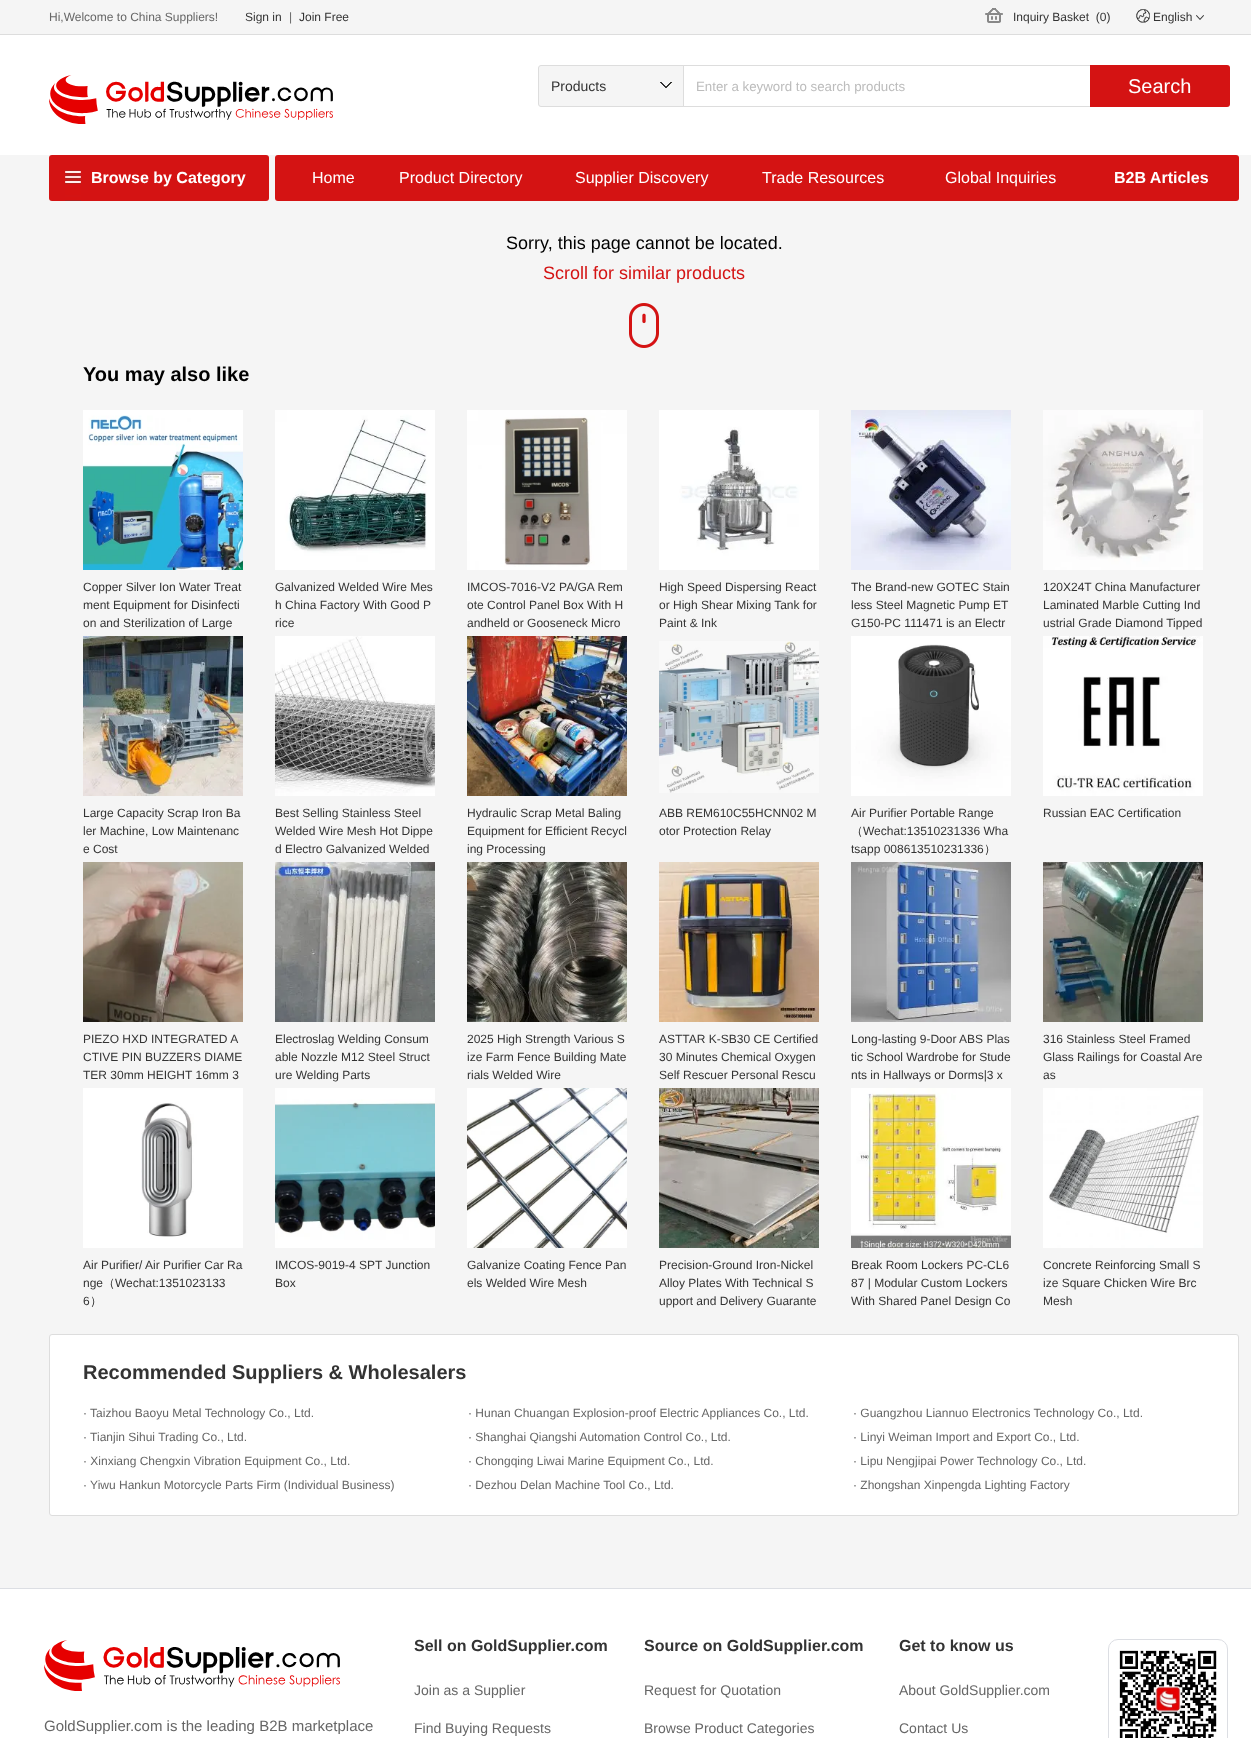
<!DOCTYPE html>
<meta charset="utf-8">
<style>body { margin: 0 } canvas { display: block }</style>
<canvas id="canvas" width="1251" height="1738"></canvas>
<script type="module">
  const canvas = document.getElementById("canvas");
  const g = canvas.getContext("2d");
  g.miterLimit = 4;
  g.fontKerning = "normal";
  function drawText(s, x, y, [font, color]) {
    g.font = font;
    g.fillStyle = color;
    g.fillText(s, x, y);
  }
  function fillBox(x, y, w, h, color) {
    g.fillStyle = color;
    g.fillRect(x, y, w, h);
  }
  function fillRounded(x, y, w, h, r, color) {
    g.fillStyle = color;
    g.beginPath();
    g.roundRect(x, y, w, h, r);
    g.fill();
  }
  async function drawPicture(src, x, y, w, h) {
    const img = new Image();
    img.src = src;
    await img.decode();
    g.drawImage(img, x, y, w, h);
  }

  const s1 = ["12px Liberation Sans", "#666666"];
  const s2 = ["12px Liberation Sans", "#333333"];
  const s3 = ["14px Liberation Sans", "#333333"];
  const s4 = ["13.3px Liberation Sans", "#BCBCBC"];
  const s5 = ["20px Liberation Sans", "#FFFFFF"];
  const s6 = ["bold 16px Liberation Sans", "#FFFFFF"];
  const s7 = ["16px Liberation Sans", "#FFFFFF"];
  const s8 = ["18px Liberation Sans", "#000000"];
  const s9 = ["18px Liberation Sans", "#D41313"];
  const s10 = ["bold 20px Liberation Sans", "#000000"];
  const s11 = ["500 12px WenQuanYi Zen Hei", "#333333"];
  const s12 = ["bold 20px Liberation Sans", "#333333"];
  const s13 = ["15px Liberation Sans", "#666666"];
  const s14 = ["bold 16px Liberation Sans", "#333333"];
  const s15 = ["14px Liberation Sans", "#666666"];

  fillBox(0, 0, 1251, 1738, "#F5F5F5");
  fillBox(0, 34, 1251, 1, "#DDDDDD");
  drawText("Hi,Welcome to China Suppliers!", 49, 21, s1);
  drawText("Sign in", 245, 21, s2);
  drawText("|", 289, 21, s1);
  drawText("Join Free", 299, 21, s2);
  await drawPicture("pic1.png", 985, 8, 18, 15);
  drawText("Inquiry Basket  (0)", 1013, 21, s2);
  await drawPicture("pic2.png", 1136, 9, 14, 14);
  drawText("English", 1153, 21, s2);
  await drawPicture("pic3.png", 1196, 15, 8, 5);
  fillBox(0, 35, 1251, 120, "#FFFFFF");
  await drawPicture("pic4.png", 49, 75, 284, 49);
  g.strokeStyle = "#DDDDDD";
  g.strokeRect(683.5, 65.5, 407, 41);
  g.fillStyle = "#F5F5F5";
  g.beginPath();
  g.roundRect(538.5, 65.5, 145, 41, [2.5, 0, 0, 2.5]);
  g.fill();
  g.stroke();
  drawText("Products", 551, 91, s3);
  await drawPicture("pic5.png", 660, 82, 13, 6);
  drawText("Enter a keyword to search products", 696, 91, s4);
  g.fillStyle = "#D41313";
  g.beginPath();
  g.roundRect(1090, 65, 140, 42, [0, 3, 3, 0]);
  g.fill();
  drawText("Search", 1128, 93, s5);
  fillRounded(49, 155, 220, 46, 3, "#D41313");
  await drawPicture("pic6.png", 65, 170, 16, 31);
  drawText("Browse by Category", 91, 183, s6);
  fillRounded(275, 155, 964, 46, 3, "#D41313");
  drawText("Home", 312, 183, s7);
  drawText("Product Directory", 399, 183, s7);
  drawText("Supplier Discovery", 575, 183, s7);
  drawText("Trade Resources", 762, 183, s7);
  drawText("Global Inquiries", 945, 183, s7);
  drawText("B2B Articles", 1114, 183, s6);
  drawText("Sorry, this page cannot be located.", 506, 249, s8);
  drawText("Scroll for similar products", 543, 279, s9);
  await drawPicture("pic7.png", 629, 303, 30, 45);
  drawText("You may also like", 83, 381, s10);
  await drawPicture("pic8.png", 83, 410, 160, 160);
  drawText("Copper Silver Ion Water Treat", 83, 591, s2);
  drawText("ment Equipment for Disinfecti", 83, 609, s2);
  drawText("on and Sterilization of Large", 83, 627, s2);
  await drawPicture("pic9.png", 275, 410, 160, 160);
  drawText("Galvanized Welded Wire Mes", 275, 591, s2);
  drawText("h China Factory With Good P", 275, 609, s2);
  drawText("rice", 275, 627, s2);
  await drawPicture("pic10.png", 467, 410, 160, 160);
  drawText("IMCOS-7016-V2 PA/GA Rem", 467, 591, s2);
  drawText("ote Control Panel Box With H", 467, 609, s2);
  drawText("andheld or Gooseneck Micro", 467, 627, s2);
  await drawPicture("pic11.png", 659, 410, 160, 160);
  drawText("High Speed Dispersing React", 659, 591, s2);
  drawText("or High Shear Mixing Tank for", 659, 609, s2);
  drawText("Paint & Ink", 659, 627, s2);
  await drawPicture("pic12.png", 851, 410, 160, 160);
  drawText("The Brand-new GOTEC Stain", 851, 591, s2);
  drawText("less Steel Magnetic Pump ET", 851, 609, s2);
  drawText("G150-PC 111471 is an Electr", 851, 627, s2);
  await drawPicture("pic13.png", 1043, 410, 160, 160);
  drawText("120X24T China Manufacturer", 1043, 591, s2);
  drawText("Laminated Marble Cutting Ind", 1043, 609, s2);
  drawText("ustrial Grade Diamond Tipped", 1043, 627, s2);
  await drawPicture("pic14.png", 83, 636, 160, 160);
  drawText("Large Capacity Scrap Iron Ba", 83, 817, s2);
  drawText("ler Machine, Low Maintenanc", 83, 835, s2);
  drawText("e Cost", 83, 853, s2);
  await drawPicture("pic15.png", 275, 636, 160, 160);
  drawText("Best Selling Stainless Steel", 275, 817, s2);
  drawText("Welded Wire Mesh Hot Dippe", 275, 835, s2);
  drawText("d Electro Galvanized Welded", 275, 853, s2);
  await drawPicture("pic16.png", 467, 636, 160, 160);
  drawText("Hydraulic Scrap Metal Baling", 467, 817, s2);
  drawText("Equipment for Efficient Recycl", 467, 835, s2);
  drawText("ing Processing", 467, 853, s2);
  await drawPicture("pic17.png", 659, 641, 160, 152);
  drawText("ABB REM610C55HCNN02 M", 659, 817, s2);
  drawText("otor Protection Relay", 659, 835, s2);
  await drawPicture("pic18.png", 851, 636, 160, 160);
  drawText("Air Purifier Portable Range", 851, 817, s2);
  drawText("（", 851, 835, s11);
  drawText("Wechat:13510231336 Wha", 863, 835, s2);
  drawText("tsapp 008613510231336", 851, 853, s2);
  drawText("）", 984, 853, s11);
  await drawPicture("pic19.png", 1043, 636, 160, 160);
  drawText("Russian EAC Certification", 1043, 817, s2);
  await drawPicture("pic20.png", 83, 862, 160, 160);
  drawText("PIEZO HXD INTEGRATED A", 83, 1043, s2);
  drawText("CTIVE PIN BUZZERS DIAME", 83, 1061, s2);
  drawText("TER 30mm HEIGHT 16mm 3", 83, 1079, s2);
  await drawPicture("pic21.png", 275, 862, 160, 160);
  drawText("Electroslag Welding Consum", 275, 1043, s2);
  drawText("able Nozzle M12 Steel Struct", 275, 1061, s2);
  drawText("ure Welding Parts", 275, 1079, s2);
  await drawPicture("pic22.png", 467, 862, 160, 160);
  drawText("2025 High Strength Various S", 467, 1043, s2);
  drawText("ize Farm Fence Building Mate", 467, 1061, s2);
  drawText("rials Welded Wire", 467, 1079, s2);
  await drawPicture("pic23.png", 659, 862, 160, 160);
  drawText("ASTTAR K-SB30 CE Certified", 659, 1043, s2);
  drawText("30 Minutes Chemical Oxygen", 659, 1061, s2);
  drawText("Self Rescuer Personal Rescu", 659, 1079, s2);
  await drawPicture("pic24.png", 851, 862, 160, 160);
  drawText("Long-lasting 9-Door ABS Plas", 851, 1043, s2);
  drawText("tic School Wardrobe for Stude", 851, 1061, s2);
  drawText("nts in Hallways or Dorms|3 x", 851, 1079, s2);
  await drawPicture("pic25.png", 1043, 862, 160, 160);
  drawText("316 Stainless Steel Framed", 1043, 1043, s2);
  drawText("Glass Railings for Coastal Are", 1043, 1061, s2);
  drawText("as", 1043, 1079, s2);
  await drawPicture("pic26.png", 83, 1088, 160, 160);
  drawText("Air Purifier/ Air Purifier Car Ra", 83, 1269, s2);
  drawText("nge", 83, 1287, s2);
  drawText("（", 103, 1287, s11);
  drawText("Wechat:1351023133", 115, 1287, s2);
  drawText("6", 83, 1305, s2);
  drawText("）", 90, 1305, s11);
  await drawPicture("pic27.png", 275, 1088, 160, 160);
  drawText("IMCOS-9019-4 SPT Junction", 275, 1269, s2);
  drawText("Box", 275, 1287, s2);
  await drawPicture("pic28.png", 467, 1088, 160, 160);
  drawText("Galvanize Coating Fence Pan", 467, 1269, s2);
  drawText("els Welded Wire Mesh", 467, 1287, s2);
  await drawPicture("pic29.png", 659, 1088, 160, 160);
  drawText("Precision-Ground Iron-Nickel", 659, 1269, s2);
  drawText("Alloy Plates With Technical S", 659, 1287, s2);
  drawText("upport and Delivery Guarante", 659, 1305, s2);
  await drawPicture("pic30.png", 851, 1088, 160, 160);
  drawText("Break Room Lockers PC-CL6", 851, 1269, s2);
  drawText("87 | Modular Custom Lockers", 851, 1287, s2);
  drawText("With Shared Panel Design Co", 851, 1305, s2);
  await drawPicture("pic31.png", 1043, 1088, 160, 160);
  drawText("Concrete Reinforcing Small S", 1043, 1269, s2);
  drawText("ize Square Chicken Wire Brc", 1043, 1287, s2);
  drawText("Mesh", 1043, 1305, s2);
  g.fillStyle = "#FFFFFF";
  g.beginPath();
  g.roundRect(49.5, 1334.5, 1189, 181, 2.5);
  g.fill();
  g.stroke();
  drawText("Recommended Suppliers & Wholesalers", 83, 1379, s12);
  drawText("· Taizhou Baoyu Metal Technology Co., Ltd.", 83, 1417, s1);
  drawText("· Hunan Chuangan Explosion-proof Electric Appliances Co., Ltd.", 468, 1417, s1);
  drawText("· Guangzhou Liannuo Electronics Technology Co., Ltd.", 853, 1417, s1);
  drawText("· Tianjin Sihui Trading Co., Ltd.", 83, 1441, s1);
  drawText("· Shanghai Qiangshi Automation Control Co., Ltd.", 468, 1441, s1);
  drawText("· Linyi Weiman Import and Export Co., Ltd.", 853, 1441, s1);
  drawText("· Xinxiang Chengxin Vibration Equipment Co., Ltd.", 83, 1465, s1);
  drawText("· Chongqing Liwai Marine Equipment Co., Ltd.", 468, 1465, s1);
  drawText("· Lipu Nengjipai Power Technology Co., Ltd.", 853, 1465, s1);
  drawText("· Yiwu Hankun Motorcycle Parts Firm (Individual Business)", 83, 1489, s1);
  drawText("· Dezhou Delan Machine Tool Co., Ltd.", 468, 1489, s1);
  drawText("· Zhongshan Xinpengda Lighting Factory", 853, 1489, s1);
  fillBox(0, 1589, 1251, 149, "#FFFFFF");
  fillBox(0, 1588, 1251, 1, "#DCDEE3");
  await drawPicture("pic32.png", 44, 1640, 296, 51);
  drawText("GoldSupplier.com is the leading B2B marketplace", 44, 1731, s13);
  drawText("Sell on GoldSupplier.com", 414, 1651, s14);
  drawText("Join as a Supplier", 414, 1695, s15);
  drawText("Find Buying Requests", 414, 1733, s15);
  drawText("Source on GoldSupplier.com", 644, 1651, s14);
  drawText("Request for Quotation", 644, 1695, s15);
  drawText("Browse Product Categories", 644, 1733, s15);
  drawText("Get to know us", 899, 1651, s14);
  drawText("About GoldSupplier.com", 899, 1695, s15);
  drawText("Contact Us", 899, 1733, s15);
  g.beginPath();
  g.roundRect(1108.5, 1639.5, 119, 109, 9.5);
  g.strokeStyle = "#DCDEE3";
  g.stroke();
  await drawPicture("pic33.png", 1119, 1650, 98, 88);
</script>
